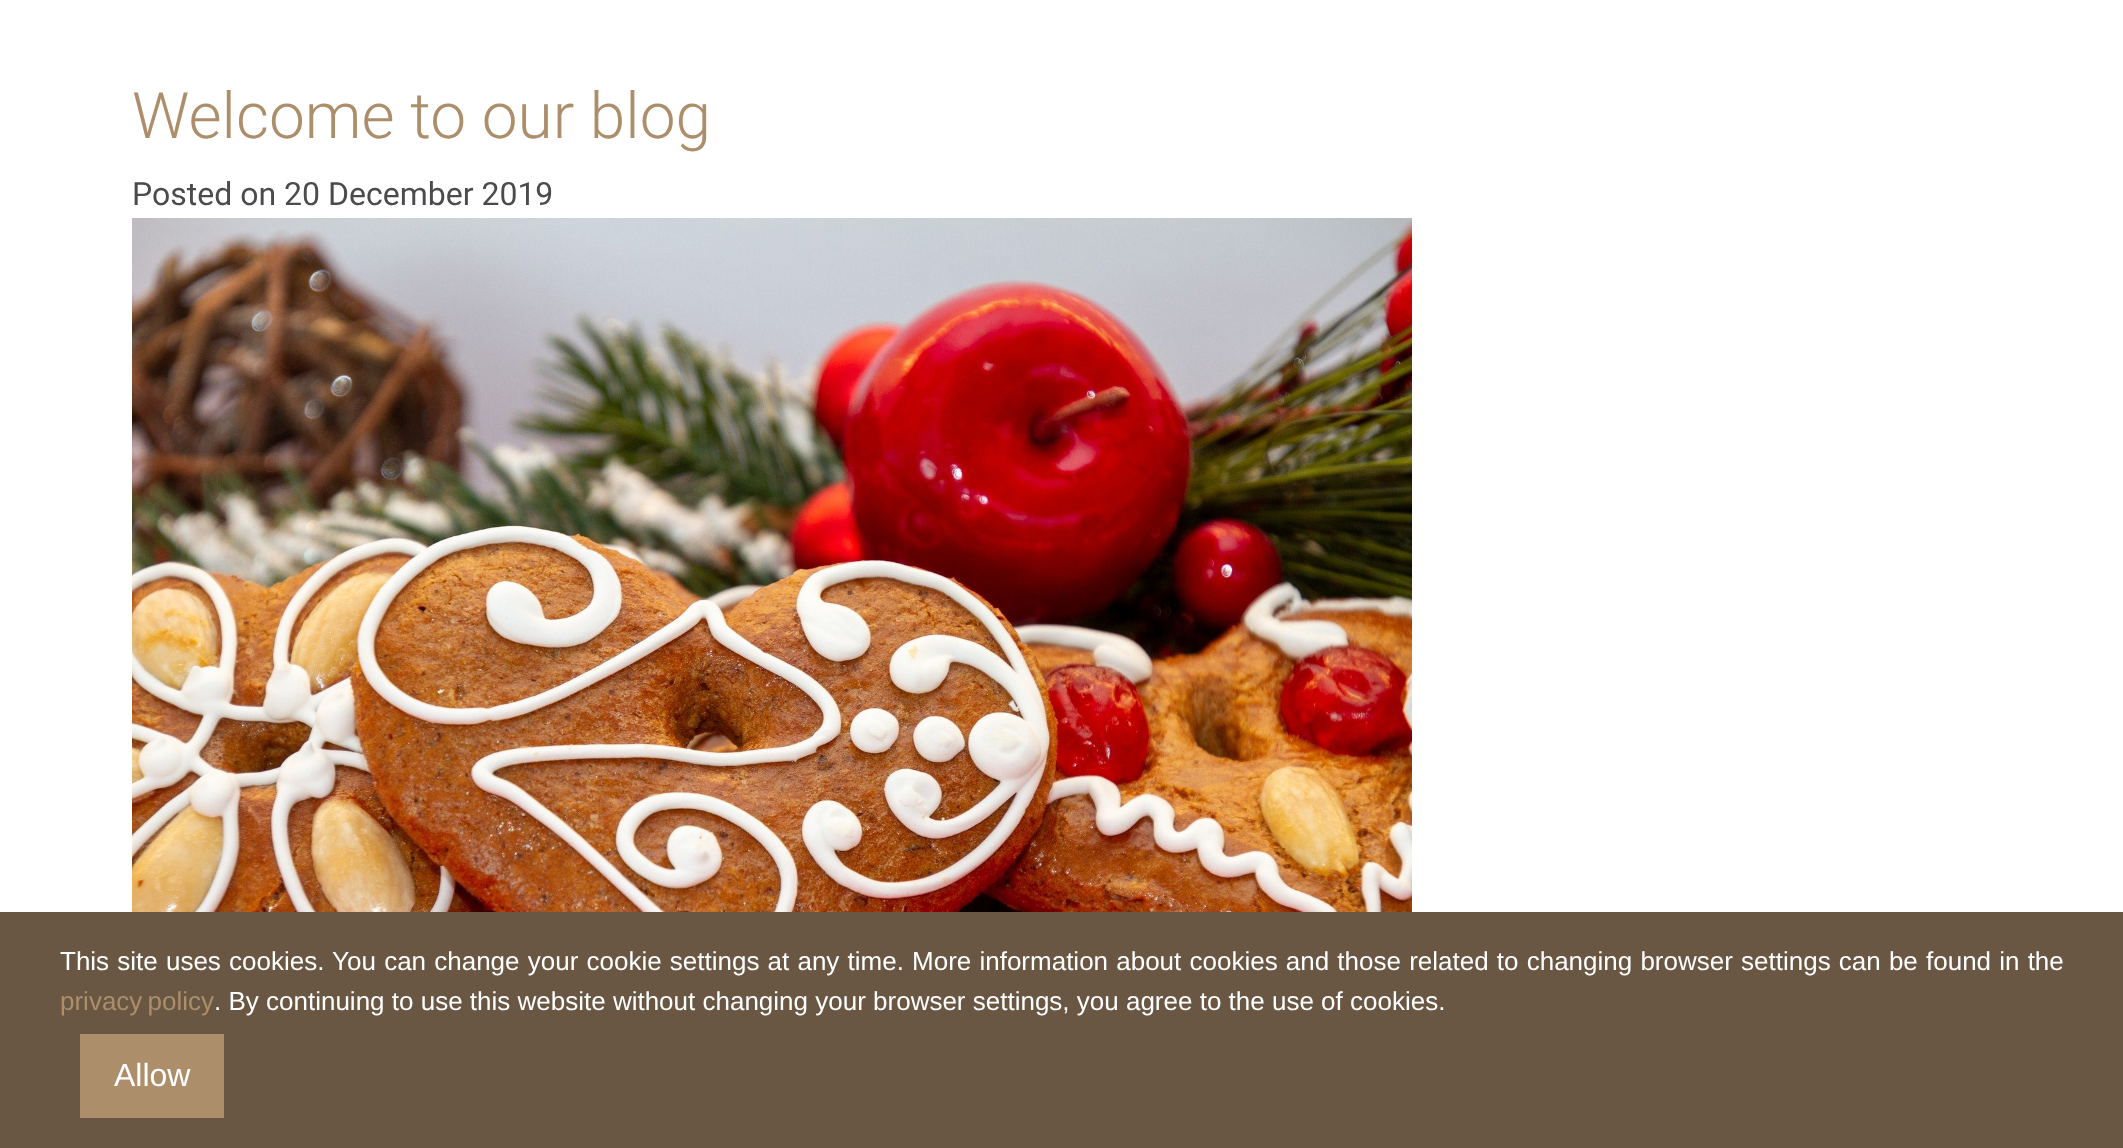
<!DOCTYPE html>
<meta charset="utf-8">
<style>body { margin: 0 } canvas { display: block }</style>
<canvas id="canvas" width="2123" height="1148"></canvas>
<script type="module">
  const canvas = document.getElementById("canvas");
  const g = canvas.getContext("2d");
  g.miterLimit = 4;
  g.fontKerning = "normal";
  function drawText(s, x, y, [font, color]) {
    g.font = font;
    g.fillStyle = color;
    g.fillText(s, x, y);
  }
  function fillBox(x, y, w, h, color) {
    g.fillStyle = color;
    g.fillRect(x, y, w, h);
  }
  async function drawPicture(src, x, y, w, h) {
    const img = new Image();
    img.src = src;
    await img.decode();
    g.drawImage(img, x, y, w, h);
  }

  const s1 = ["300 64px Roboto", "#AD8E6B"];
  const s2 = ["32px Roboto", "#4C4B4B"];
  const s3 = ["26px Liberation Sans", "#FFFFFF"];
  const s4 = ["26px Liberation Sans", "#AD8E6B"];
  const s5 = ["32px Liberation Sans", "#FFFFFF"];

  fillBox(0, 0, 2123, 1148, "#FFFFFF");
  drawText("Welcome to our blog", 132, 138, s1);
  drawText("Posted on 20 December 2019", 132, 205, s2);
  await drawPicture("pic1.png", 132, 218, 1280, 694);
  fillBox(0, 912, 2123, 236, "#695744");
  g.wordSpacing = "0.95px";
  drawText("This site uses cookies. You can change your cookie settings at any time. More information about cookies and those related to changing browser settings can be found in the", 60, 970, s3);
  g.wordSpacing = "-2px";
  drawText("privacy policy", 60, 1010, s4);
  g.wordSpacing = "0px";
  drawText(". By continuing to use this website without changing your browser settings, you agree to the use of cookies.", 214, 1010, s3);
  fillBox(80, 1034, 144, 84, "#AD8E6B");
  drawText("Allow", 114, 1086, s5);
</script>
